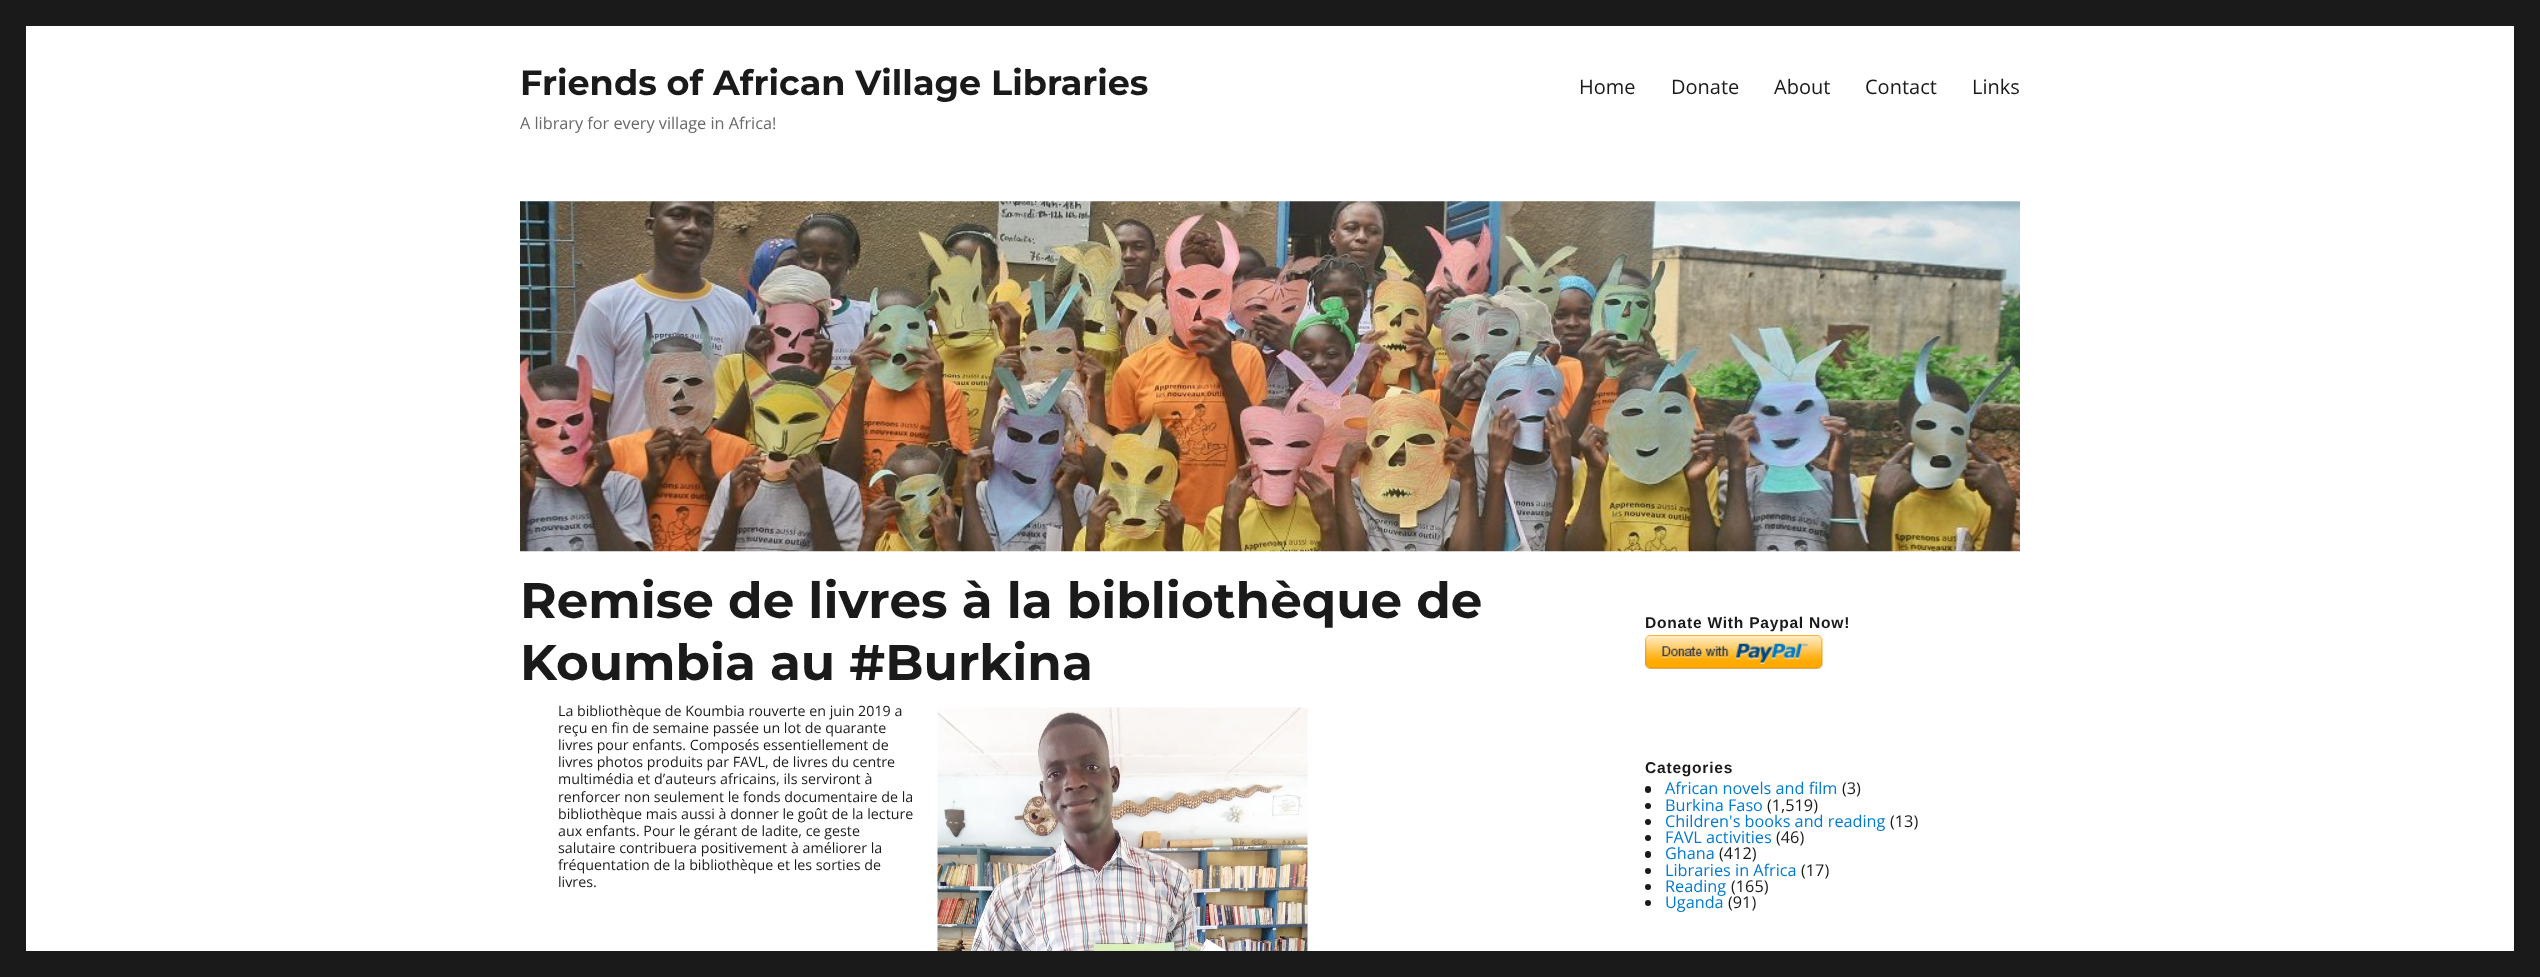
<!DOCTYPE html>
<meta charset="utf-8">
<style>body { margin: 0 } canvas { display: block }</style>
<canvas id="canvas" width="2540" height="977"></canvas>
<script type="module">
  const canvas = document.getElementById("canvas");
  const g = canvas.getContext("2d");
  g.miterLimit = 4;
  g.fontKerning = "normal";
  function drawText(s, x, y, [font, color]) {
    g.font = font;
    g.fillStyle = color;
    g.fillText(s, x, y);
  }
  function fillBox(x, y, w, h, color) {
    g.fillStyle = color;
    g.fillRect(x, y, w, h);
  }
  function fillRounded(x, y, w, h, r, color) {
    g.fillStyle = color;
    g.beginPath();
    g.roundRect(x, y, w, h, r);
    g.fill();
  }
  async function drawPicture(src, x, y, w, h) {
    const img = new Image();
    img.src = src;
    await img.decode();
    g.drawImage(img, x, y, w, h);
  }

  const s1 = ["100 35px Montserrat", "#1A1A1A"];
  const s2 = ["16.25px Open Sans", "#686868"];
  const s3 = ["20px Open Sans", "#1A1A1A"];
  const s4 = ["100 50px Montserrat", "#1A1A1A"];
  const s5 = ["14.25px Open Sans", "#1A1A1A"];
  const s6 = ["bold 15.6px Liberation Sans", "#1A1A1A"];
  const s7 = ["16.25px Open Sans", "#007ACC"];
  const s8 = ["16.25px Open Sans", "#1A1A1A"];

  fillBox(0, 0, 2540, 977, "#1A1A1A");
  fillBox(26, 26, 2488, 925, "#FFFFFF");
  drawText("Friends of African Village Libraries", 520, 95, s1);
  drawText("A library for every village in Africa!", 520, 129, s2);
  drawText("Home", 1579, 94, s3);
  drawText("Donate", 1671, 94, s3);
  drawText("About", 1774, 94, s3);
  drawText("Contact", 1865, 94, s3);
  drawText("Links", 1972, 94, s3);
  await drawPicture("pic1.png", 520, 201, 1500, 351);
  drawText("Remise de livres à la bibliothèque de", 520, 618, s4);
  drawText("Koumbia au #Burkina", 520, 680, s4);
  drawText("La bibliothèque de Koumbia rouverte en juin 2019 a", 558, 716, s5);
  await drawPicture("pic2.png", 937, 707, 371, 244);
  drawText("reçu en fin de semaine passée un lot de quarante", 558, 733, s5);
  drawText("livres pour enfants. Composés essentiellement de", 558, 750, s5);
  drawText("livres photos produits par FAVL, de livres du centre", 558, 767, s5);
  drawText("multimédia et d’auteurs africains, ils serviront à", 558, 784, s5);
  drawText("renforcer non seulement le fonds documentaire de la", 558, 802, s5);
  drawText("bibliothèque mais aussi à donner le goût de la lecture", 558, 819, s5);
  drawText("aux enfants. Pour le gérant de ladite, ce geste", 558, 836, s5);
  drawText("salutaire contribuera positivement à améliorer la", 558, 853, s5);
  drawText("fréquentation de la bibliothèque et les sorties de", 558, 870, s5);
  drawText("livres.", 558, 887, s5);
  g.letterSpacing = "0.75px";
  drawText("Donate With Paypal Now!", 1645, 628, s6);
  await drawPicture("pic3.png", 1645, 635, 178, 34);
  drawText("Categories", 1645, 773, s6);
  fillRounded(1645, 786, 6, 7, 3, "#1A1A1A");
  g.letterSpacing = "0px";
  drawText("African novels and film", 1665, 794, s7);
  drawText("(3)", 1842, 794, s8);
  g.beginPath();
  g.arc(1648, 806, 3, 0, Math.PI * 2);
  g.fill();
  drawText("Burkina Faso", 1665, 811, s7);
  drawText("(1,519)", 1767, 811, s8);
  g.beginPath();
  g.arc(1648, 822, 3, 0, Math.PI * 2);
  g.fill();
  drawText("Children's books and reading", 1665, 827, s7);
  drawText("(13)", 1890, 827, s8);
  g.beginPath();
  g.arc(1648, 838, 3, 0, Math.PI * 2);
  g.fill();
  drawText("FAVL activities", 1665, 843, s7);
  drawText("(46)", 1776, 843, s8);
  fillRounded(1645, 851, 6, 7, 3, "#1A1A1A");
  drawText("Ghana", 1665, 859, s7);
  drawText("(412)", 1719, 859, s8);
  g.beginPath();
  g.arc(1648, 871, 3, 0, Math.PI * 2);
  g.fill();
  drawText("Libraries in Africa", 1665, 876, s7);
  drawText("(17)", 1801, 876, s8);
  g.beginPath();
  g.arc(1648, 887, 3, 0, Math.PI * 2);
  g.fill();
  drawText("Reading", 1665, 892, s7);
  drawText("(165)", 1731, 892, s8);
  g.beginPath();
  g.arc(1648, 903, 3, 0, Math.PI * 2);
  g.fill();
  drawText("Uganda", 1665, 908, s7);
  drawText("(91)", 1728, 908, s8);
</script>
